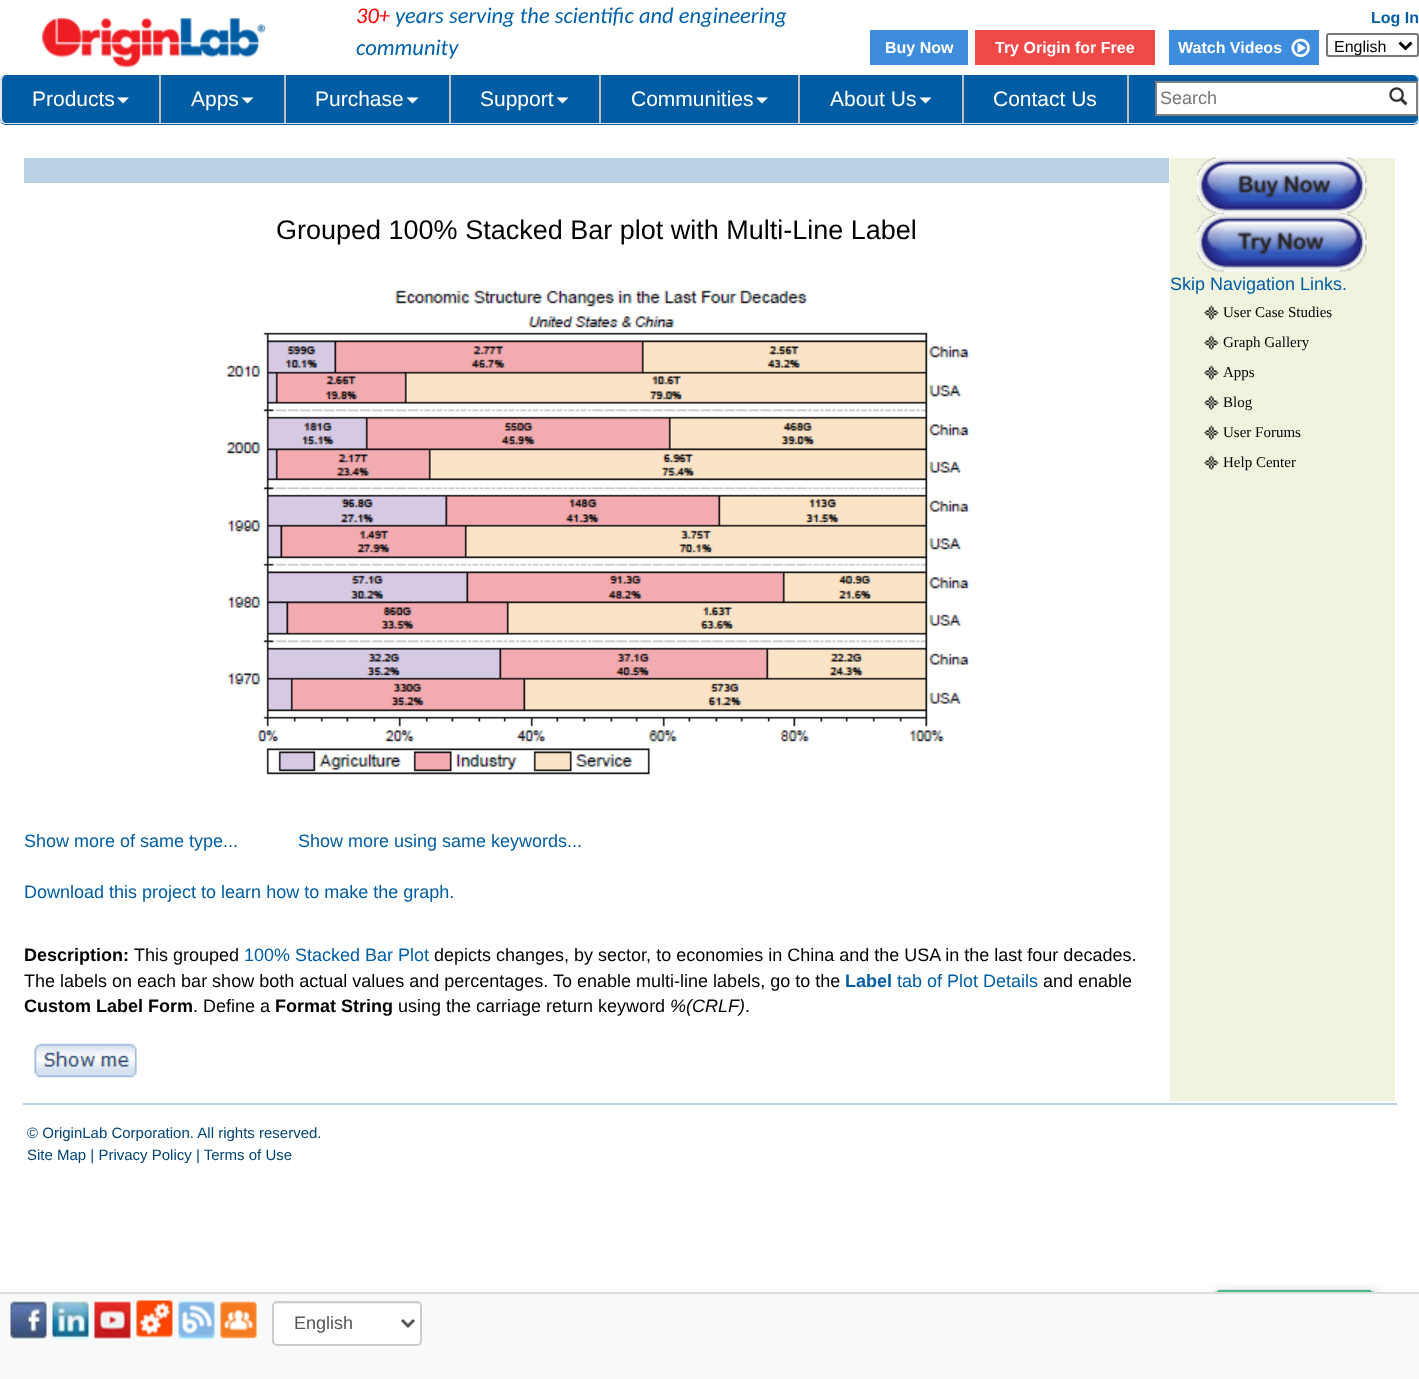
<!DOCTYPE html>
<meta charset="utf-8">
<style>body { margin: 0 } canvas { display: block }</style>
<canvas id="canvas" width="1419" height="1379"></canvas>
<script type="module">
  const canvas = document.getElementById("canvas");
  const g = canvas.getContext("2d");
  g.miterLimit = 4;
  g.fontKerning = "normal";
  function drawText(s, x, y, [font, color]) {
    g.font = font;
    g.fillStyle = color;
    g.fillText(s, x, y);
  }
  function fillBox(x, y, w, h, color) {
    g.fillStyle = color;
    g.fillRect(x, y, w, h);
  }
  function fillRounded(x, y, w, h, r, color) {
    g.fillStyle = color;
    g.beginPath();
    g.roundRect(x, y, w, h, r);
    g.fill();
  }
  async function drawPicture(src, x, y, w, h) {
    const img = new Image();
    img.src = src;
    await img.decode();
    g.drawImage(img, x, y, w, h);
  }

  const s1 = ["italic 22.5px Carlito", "#FF0000"];
  const s2 = ["italic 22.5px Carlito", "#0061AD"];
  const s3 = ["bold 16px Liberation Sans", "#005DA4"];
  const s4 = ["bold 16px Liberation Sans", "#FFFFFF"];
  const s5 = ["16px Liberation Sans", "#000000"];
  const s6 = ["21px Liberation Sans", "#FFFFFF"];
  const s7 = ["18px Liberation Sans", "#757575"];
  const s8 = ["27px Liberation Sans", "#000000"];
  const s9 = ["18px Liberation Sans", "#005DA4"];
  const s10 = ["15px Liberation Serif", "#000000"];
  const s11 = ["bold 18px Liberation Sans", "#000000"];
  const s12 = ["18px Liberation Sans", "#000000"];
  const s13 = ["bold 18px Liberation Sans", "#005DA4"];
  const s14 = ["italic 18px Liberation Sans", "#000000"];
  const s15 = ["15px Liberation Sans", "#004376"];
  const s16 = ["18px Liberation Sans", "#555555"];

  fillBox(0, 0, 1419, 1379, "#FFFFFF");
  await drawPicture("pic1.png", 42, 18, 224, 50);
  drawText("30+", 356, 23, s1);
  drawText("years serving the scientific and engineering", 395, 23, s2);
  drawText("community", 356, 55, s2);
  drawText("Log In", 1371, 23, s3);
  fillBox(870, 30, 98, 35, "#3E8DDD");
  drawText("Buy Now", 885, 53, s4);
  fillBox(975, 30, 180, 35, "#F14947");
  drawText("Try Origin for Free", 995, 53, s4);
  fillBox(1169, 30, 150, 35, "#3E8DDD");
  drawText("Watch Videos", 1178, 53, s4);
  await drawPicture("pic2.png", 1291, 38, 19, 19);
  g.beginPath();
  g.roundRect(1327, 34, 91, 22, 2);
  g.strokeStyle = "#767676";
  g.lineWidth = 2;
  g.stroke();
  g.beginPath();
  g.moveTo(1399.5, 42.5);
  g.lineTo(1405.5, 48.5);
  g.lineTo(1411.5, 42.5);
  g.strokeStyle = "#000000";
  g.lineWidth = 3;
  g.stroke();
  drawText("English", 1334, 52, s5);
  fillRounded(0, 75, 1419, 50, 6, "#005DA4");
  g.fillStyle = "#E7E7E7";
  g.beginPath();
  g.moveTo(6, 75);
  g.lineTo(1413, 75);
  g.bezierCurveTo(1416, 75, 1419, 78, 1419, 81);
  g.lineTo(1419, 118);
  g.bezierCurveTo(1419, 122, 1416, 124, 1413, 124);
  g.lineTo(6, 124);
  g.bezierCurveTo(3, 124, 0, 122, 0, 118);
  g.lineTo(0, 81);
  g.bezierCurveTo(0, 78, 3, 75, 6, 75);
  g.closePath();
  g.moveTo(6, 75);
  g.lineTo(1413, 75);
  g.bezierCurveTo(1415, 75, 1418, 78, 1418, 81);
  g.lineTo(1418, 118);
  g.bezierCurveTo(1418, 121, 1415, 123, 1413, 123);
  g.lineTo(6, 123);
  g.bezierCurveTo(4, 123, 2, 121, 2, 118);
  g.lineTo(2, 81);
  g.bezierCurveTo(2, 78, 4, 75, 6, 75);
  g.closePath();
  g.fill("evenodd");
  fillBox(159, 75, 2, 48, "#BFBFBF");
  drawText("Products", 32, 106, s6);
  g.beginPath();
  g.moveTo(117, 97.5);
  g.lineTo(129, 97.5);
  g.lineTo(123, 103.5);
  g.closePath();
  g.fill();
  fillBox(284, 75, 2, 48, "#BFBFBF");
  drawText("Apps", 191, 106, s6);
  g.beginPath();
  g.moveTo(241.5, 97.5);
  g.lineTo(253.5, 97.5);
  g.lineTo(247.5, 103.5);
  g.closePath();
  g.fill();
  fillBox(449, 75, 2, 48, "#BFBFBF");
  drawText("Purchase", 315, 106, s6);
  g.beginPath();
  g.moveTo(406.5, 97.5);
  g.lineTo(418.5, 97.5);
  g.lineTo(412.5, 103.5);
  g.closePath();
  g.fill();
  fillBox(599, 75, 2, 48, "#BFBFBF");
  drawText("Support", 480, 106, s6);
  g.beginPath();
  g.moveTo(556.5, 97.5);
  g.lineTo(568.5, 97.5);
  g.lineTo(562.5, 103.5);
  g.closePath();
  g.fill();
  fillBox(798, 75, 2, 48, "#BFBFBF");
  drawText("Communities", 631, 106, s6);
  g.beginPath();
  g.moveTo(756, 97.5);
  g.lineTo(768, 97.5);
  g.lineTo(762, 103.5);
  g.closePath();
  g.fill();
  fillBox(962, 75, 2, 48, "#BFBFBF");
  drawText("About Us", 830, 106, s6);
  g.beginPath();
  g.moveTo(919.5, 97.5);
  g.lineTo(931.5, 97.5);
  g.lineTo(925.5, 103.5);
  g.closePath();
  g.fill();
  fillBox(1127, 75, 2, 48, "#BFBFBF");
  drawText("Contact Us", 993, 106, s6);
  fillBox(1157, 83, 259, 31, "#FFFFFF");
  fillBox(1155, 81, 263, 2, "#808080");
  fillBox(1155, 114, 225, 2, "#808080");
  fillBox(1155, 81, 2, 35, "#808080");
  drawText("Search", 1160, 104, s7);
  fillBox(1416, 81, 2, 35, "#808080");
  fillBox(1380, 114, 38, 2, "#808080");
  await drawPicture("pic3.png", 1389, 87, 19, 19);
  drawText("Grouped 100% Stacked Bar plot with Multi-Line Label", 276, 239, s8);
  await drawPicture("pic4.png", 226, 290, 744, 485);
  fillBox(24, 158, 1145, 25, "#B8D1E3");
  fillBox(1170, 158, 225, 943, "#F0F4DF");
  await drawPicture("pic5.png", 1196, 157, 171, 58);
  await drawPicture("pic6.png", 1196, 214, 171, 58);
  drawText("Skip Navigation Links.", 1170, 290, s9);
  await drawPicture("pic7.png", 1204, 305, 15, 15);
  drawText("User Case Studies", 1223, 317, s10);
  await drawPicture("pic7.png", 1204, 335, 15, 15);
  drawText("Graph Gallery", 1223, 347, s10);
  await drawPicture("pic7.png", 1204, 365, 15, 15);
  drawText("Apps", 1223, 377, s10);
  await drawPicture("pic7.png", 1204, 395, 15, 15);
  drawText("Blog", 1223, 407, s10);
  await drawPicture("pic7.png", 1204, 425, 15, 15);
  drawText("User Forums", 1223, 437, s10);
  await drawPicture("pic7.png", 1204, 455, 15, 15);
  drawText("Help Center", 1223, 467, s10);
  drawText("Show more of same type...", 24, 847, s9);
  drawText("Show more using same keywords...", 298, 847, s9);
  drawText("Download this project to learn how to make the graph.", 24, 898, s9);
  drawText("Description:", 24, 961, s11);
  drawText("This grouped", 134, 961, s12);
  drawText("100% Stacked Bar Plot", 244, 961, s9);
  drawText("depicts changes, by sector, to economies in China and the USA in the last four decades.", 434, 961, s12);
  drawText("The labels on each bar show both actual values and percentages. To enable multi-line labels, go to the", 24, 987, s12);
  drawText("Label", 845, 987, s13);
  drawText("tab of Plot Details", 897, 987, s9);
  drawText("and enable", 1043, 987, s12);
  drawText("Custom Label Form", 24, 1012, s11);
  drawText(". Define a", 193, 1012, s12);
  drawText("Format String", 275, 1012, s11);
  drawText("using the carriage return keyword", 398, 1012, s12);
  drawText("%(CRLF)", 670, 1012, s14);
  drawText(".", 745, 1012, s12);
  await drawPicture("pic8.png", 34, 1043, 103, 35);
  fillBox(23, 1103, 1374, 2, "#B8D1E3");
  drawText("© OriginLab Corporation. All rights reserved.", 27, 1138, s15);
  drawText("Site Map | Privacy Policy | Terms of Use", 27, 1160, s15);
  await drawPicture("pic9.png", 1211, 1284, 172, 8);
  fillBox(0, 1294, 1419, 85, "#F9F9F9");
  fillBox(0, 1292, 1419, 2, "#DDDDDD");
  await drawPicture("pic10.png", 10, 1300, 38, 40);
  await drawPicture("pic11.png", 52, 1300, 38, 40);
  await drawPicture("pic12.png", 94, 1300, 38, 39);
  await drawPicture("pic13.png", 136, 1300, 38, 40);
  await drawPicture("pic14.png", 178, 1300, 38, 40);
  await drawPicture("pic15.png", 220, 1301, 38, 39);
  fillRounded(272, 1301, 150, 45, 5, "#FFFFFF");
  g.fillStyle = "#ECECEC";
  g.beginPath();
  g.moveTo(276, 1304);
  g.lineTo(417, 1304);
  g.bezierCurveTo(419, 1304, 420, 1305, 420, 1306);
  g.bezierCurveTo(420, 1304, 420, 1303, 418, 1302);
  g.lineTo(300, 1302);
  g.bezierCurveTo(292, 1302, 273, 1297, 273, 1306);
  g.bezierCurveTo(273, 1305, 274, 1304, 276, 1304);
  g.closePath();
  g.fill();
  g.beginPath();
  g.roundRect(273, 1302, 148, 43, 4);
  g.strokeStyle = "#CCCCCC";
  g.lineWidth = 2;
  g.stroke();
  g.beginPath();
  g.moveTo(402, 1320);
  g.lineTo(408, 1326);
  g.lineTo(414, 1320);
  g.strokeStyle = "#555555";
  g.lineWidth = 3;
  g.stroke();
  drawText("English", 294, 1329, s16);
</script>
